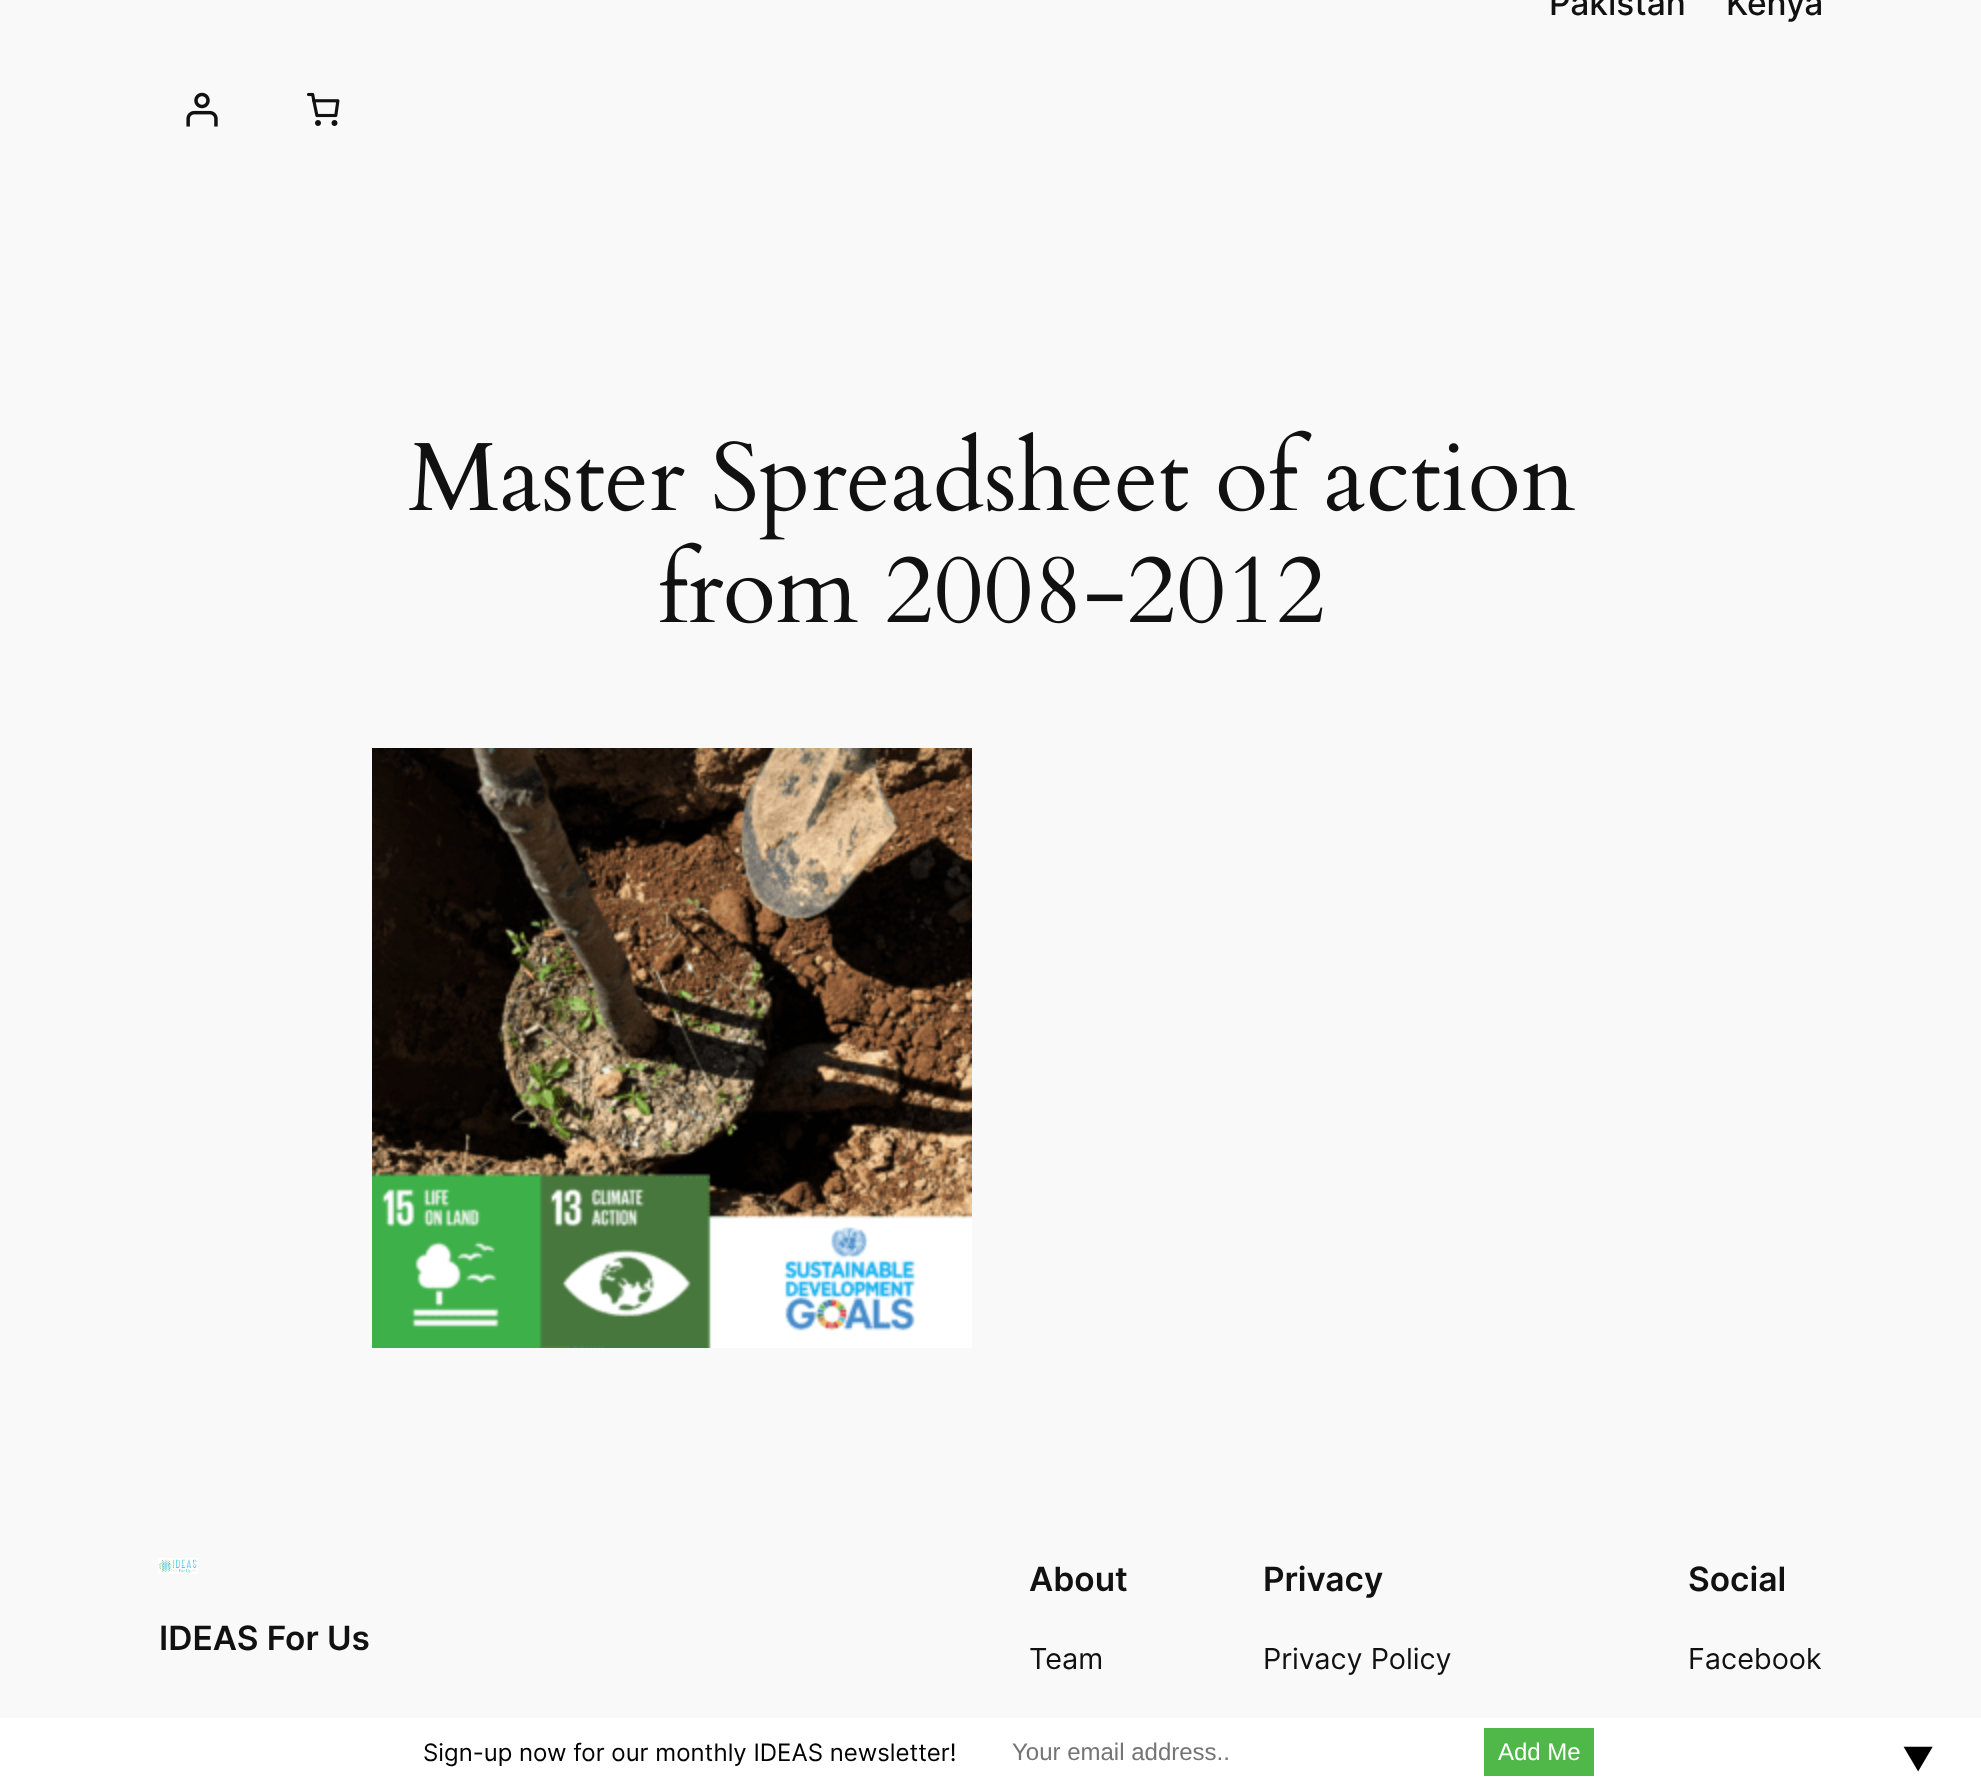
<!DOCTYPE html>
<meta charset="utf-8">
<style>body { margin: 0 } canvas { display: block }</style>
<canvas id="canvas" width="1981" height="1786"></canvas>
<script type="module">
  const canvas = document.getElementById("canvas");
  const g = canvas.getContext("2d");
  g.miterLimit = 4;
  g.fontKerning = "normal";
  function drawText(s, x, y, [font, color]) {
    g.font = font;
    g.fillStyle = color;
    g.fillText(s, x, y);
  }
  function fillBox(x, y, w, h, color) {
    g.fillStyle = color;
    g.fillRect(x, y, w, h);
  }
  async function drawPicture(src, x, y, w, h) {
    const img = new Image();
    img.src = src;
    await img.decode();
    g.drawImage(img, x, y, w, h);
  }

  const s1 = ["500 33.5px Inter", "#111111"];
  const s2 = ["600 33.5px Inter", "#111111"];
  const s3 = ["28.75px Inter", "#111111"];
  const s4 = ["24px Inter", "#000000"];
  const s5 = ["24px Liberation Sans", "#757575"];
  const s6 = ["24px Liberation Sans", "#FFFFFF"];
  const s7 = ["32px Inter", "#000000"];

  fillBox(0, 0, 1981, 1786, "#F9F9F9");
  drawText("Pakistan", 1549, 15, s1);
  drawText("Kenya", 1726, 15, s1);
  await drawPicture("pic1.png", 186, 92, 32, 35);
  await drawPicture("pic2.png", 306, 92, 34, 34);
  await drawPicture("pic3.png", 409, 430, 1166, 110);
  await drawPicture("pic4.png", 659, 542, 664, 82);
  await drawPicture("pic5.png", 372, 748, 600, 600);
  await drawPicture("pic6.png", 158, 1558, 40, 16);
  drawText("IDEAS For Us", 159, 1650, s2);
  drawText("About", 1029, 1591, s2);
  drawText("Team", 1029, 1669, s3);
  drawText("Privacy", 1263, 1591, s2);
  drawText("Privacy Policy", 1263, 1669, s3);
  drawText("Social", 1688, 1591, s2);
  drawText("Facebook", 1688, 1669, s3);
  fillBox(0, 1718, 1981, 68, "#FFFFFF");
  drawText("Sign-up now for our monthly IDEAS newsletter!", 423, 1761, s4);
  drawText("Your email address..", 1012, 1760, s5);
  fillBox(1484, 1728, 110, 48, "#50B849");
  drawText("Add Me", 1498, 1760, s6);
  drawText("▼", 1902, 1770, s7);
</script>
